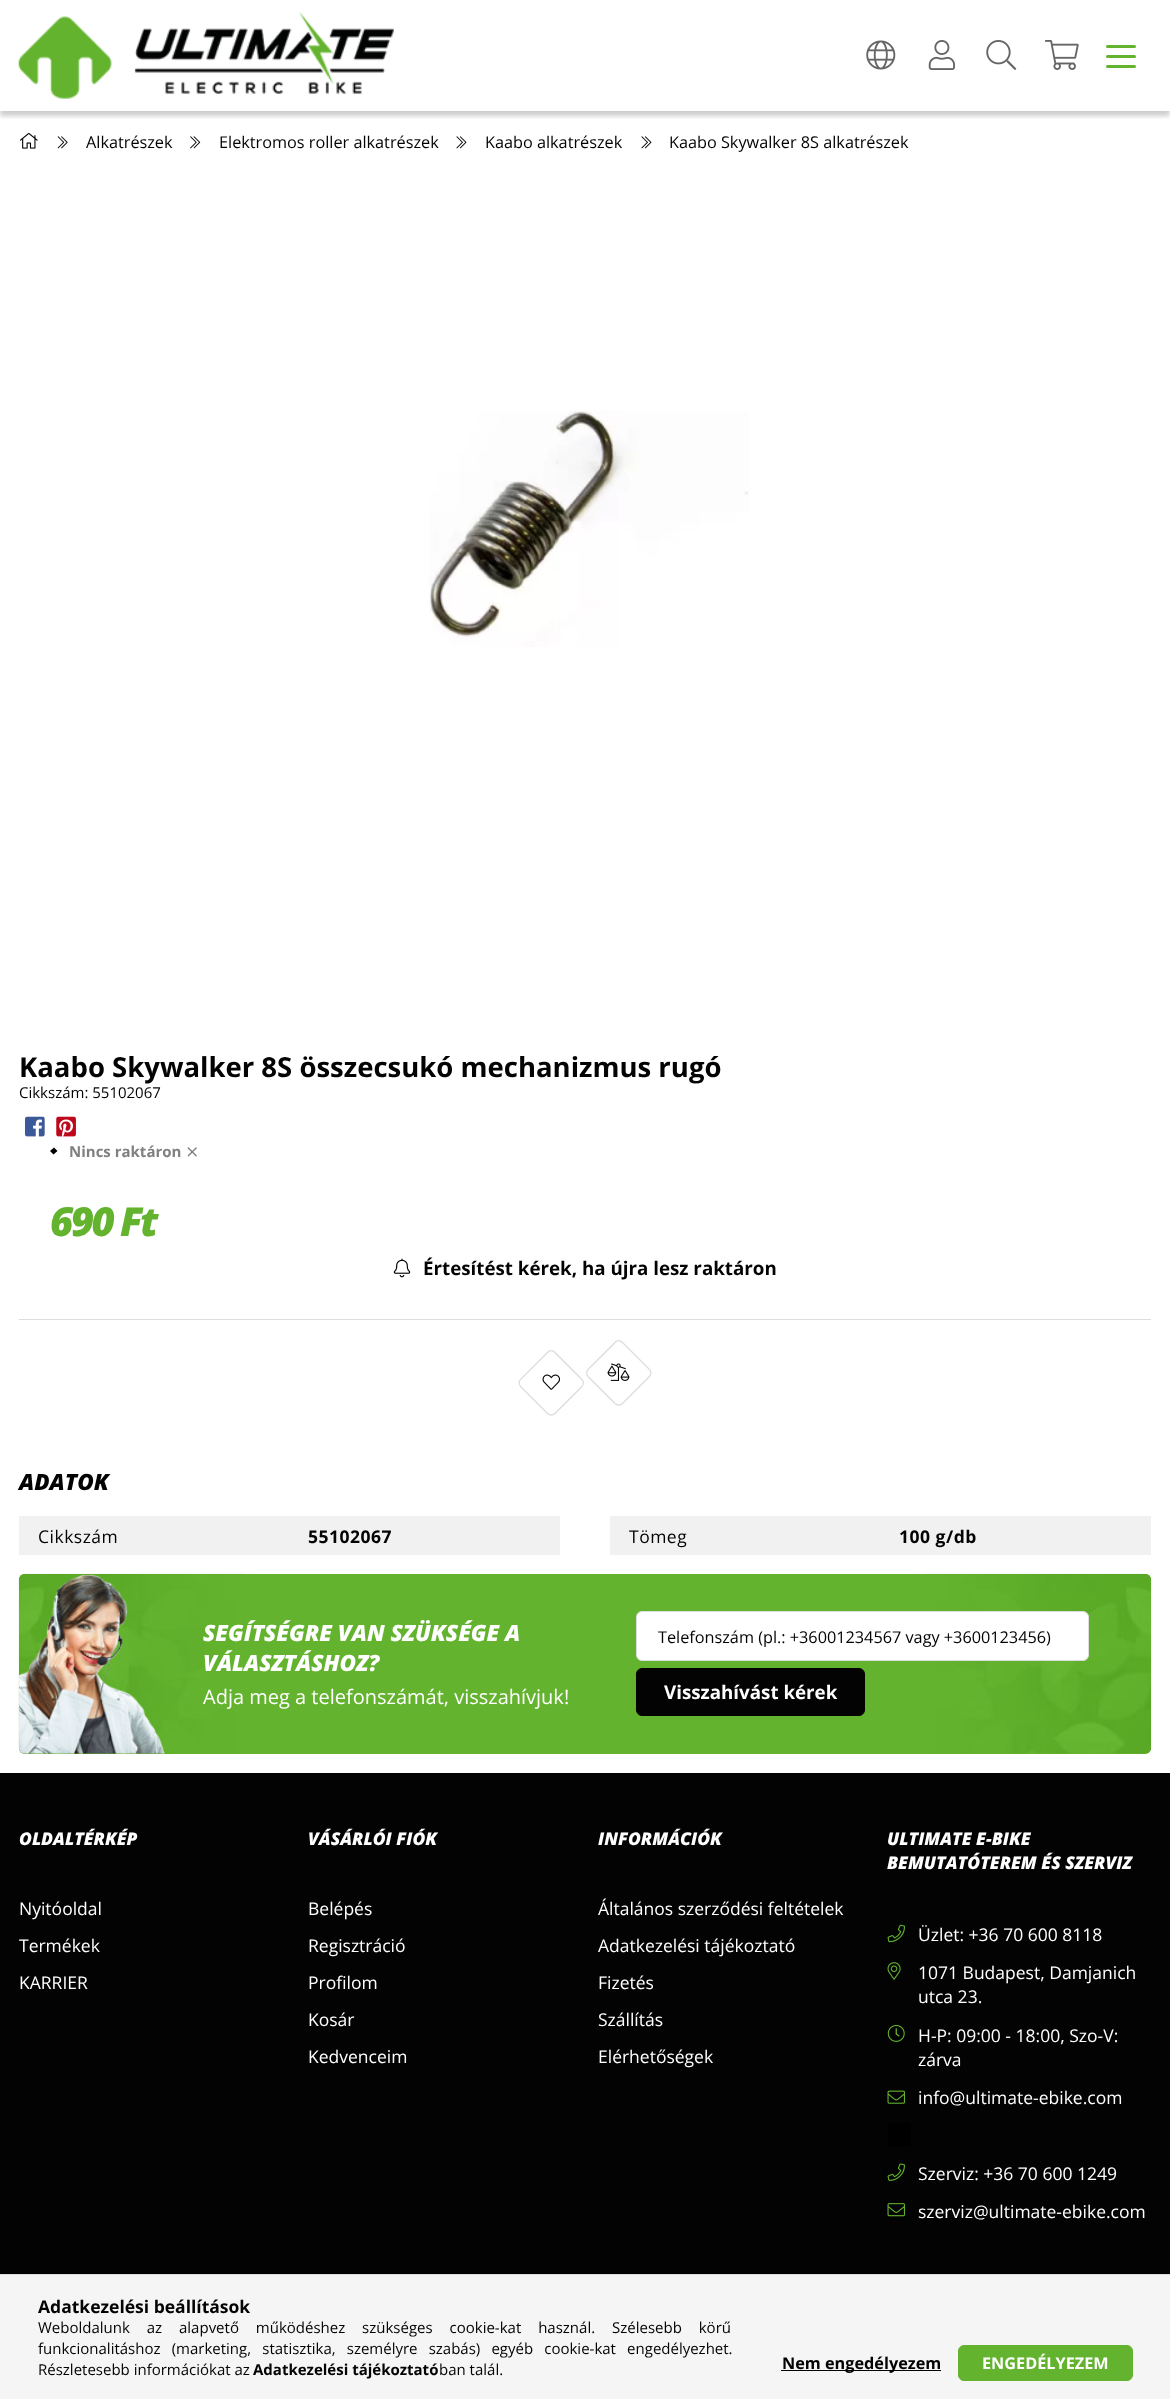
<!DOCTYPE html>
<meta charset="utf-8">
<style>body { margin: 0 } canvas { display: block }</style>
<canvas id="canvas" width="1170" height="2399"></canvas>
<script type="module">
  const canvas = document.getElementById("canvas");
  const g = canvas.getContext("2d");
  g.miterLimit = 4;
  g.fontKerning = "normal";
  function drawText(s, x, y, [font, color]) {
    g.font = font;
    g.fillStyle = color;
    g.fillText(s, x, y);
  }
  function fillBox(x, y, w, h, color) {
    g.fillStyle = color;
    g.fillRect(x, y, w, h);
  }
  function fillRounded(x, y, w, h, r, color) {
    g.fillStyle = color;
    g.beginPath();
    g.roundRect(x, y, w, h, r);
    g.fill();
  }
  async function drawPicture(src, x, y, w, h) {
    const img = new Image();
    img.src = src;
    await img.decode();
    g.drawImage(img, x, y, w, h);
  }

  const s1 = ["16.25px Open Sans", "#030303"];
  const s2 = ["bold 27.5px Open Sans", "#030303"];
  const s3 = ["15px Open Sans", "#030303"];
  const s4 = ["bold 15px Open Sans", "#808080"];
  const s5 = ["italic 800 40px Open Sans", "#63B32E"];
  const s6 = ["bold 18.75px Open Sans", "#030303"];
  const s7 = ["italic 800 22.5px Open Sans", "#030303"];
  const s8 = ["17.5px Open Sans", "#030303"];
  const s9 = ["bold 17.5px Open Sans", "#030303"];
  const s10 = ["italic 800 22.5px Open Sans", "#FFFFFF"];
  const s11 = ["20px Open Sans", "#FFFFFF"];
  const s12 = ["bold 18.75px Open Sans", "#FFFFFF"];
  const s13 = ["italic 800 17.5px Open Sans", "#FFFFFF"];
  const s14 = ["17.5px Open Sans", "#FFFFFF"];
  const s15 = ["bold 15px Open Sans", "#030303"];
  const s16 = ["bold 16.25px Open Sans", "#030303"];
  const s17 = ["bold 16.25px Open Sans", "#FFFFFF"];

  fillBox(0, 0, 1170, 2399, "#FFFFFF");
  g.save();
  g.beginPath();
  g.rect(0, 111, 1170, 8);
  g.clip();
  g.fillStyle = "rgba(0, 0, 0, 0.2)";
  g.filter = "blur(2.5px)";
  g.beginPath();
  g.rect(0, 5, 1170, 111);
  g.fill();
  g.filter = "none";
  g.restore();
  await drawPicture("pic1.png", 18, 12, 376, 87);
  await drawPicture("pic2.png", 866, 40, 30, 30);
  await drawPicture("pic3.png", 928, 40, 27, 30);
  await drawPicture("pic4.png", 986, 40, 31, 30);
  await drawPicture("pic5.png", 1045, 40, 34, 30);
  fillRounded(1106, 45, 30, 3, 1.5, "#63B32E");
  fillRounded(1106, 55, 30, 3, 1.5, "#63B32E");
  fillRounded(1106, 65, 30, 3, 1.5, "#63B32E");
  await drawPicture("pic6.png", 19, 133, 19, 16);
  await drawPicture("pic7.png", 57, 136, 11, 13);
  drawText("Alkatrészek", 86, 148, s1);
  await drawPicture("pic8.png", 190, 136, 11, 13);
  drawText("Elektromos roller alkatrészek", 219, 148, s1);
  await drawPicture("pic9.png", 456, 136, 11, 13);
  drawText("Kaabo alkatrészek", 485, 148, s1);
  await drawPicture("pic9.png", 641, 136, 11, 13);
  drawText("Kaabo Skywalker 8S alkatrészek", 669, 148, s1);
  await drawPicture("pic10.png", 429, 411, 320, 236);
  drawText("Kaabo Skywalker 8S összecsukó mechanizmus rugó", 19, 1077, s2);
  drawText("Cikkszám: 55102067", 19, 1098, s3);
  await drawPicture("pic11.png", 25, 1116, 20, 21);
  await drawPicture("pic12.png", 56, 1116, 20, 21);
  g.fillStyle = "#000000";
  g.beginPath();
  g.moveTo(54, 1147.5);
  g.lineTo(57.5, 1151);
  g.lineTo(53.5, 1154.5);
  g.lineTo(50, 1151);
  g.closePath();
  g.fill();
  drawText("Nincs raktáron", 69, 1157, s4);
  await drawPicture("pic13.png", 187, 1147, 10, 10);
  g.letterSpacing = "-2.5px";
  drawText("690 Ft", 50, 1236, s5);
  await drawPicture("pic14.png", 393, 1258, 18, 20);
  g.letterSpacing = "0px";
  drawText("Értesítést kérek, ha újra lesz raktáron", 423, 1275, s6);
  fillBox(19, 1319, 1132, 1, "#DDDDDD");
  g.beginPath();
  g.moveTo(555, 1352.5);
  g.lineTo(581.5, 1379);
  g.bezierCurveTo(584, 1381, 584, 1384.5, 581.5, 1387);
  g.lineTo(555, 1413.5);
  g.bezierCurveTo(553, 1415.5, 549.5, 1415.5, 547.5, 1413.5);
  g.lineTo(521, 1387);
  g.bezierCurveTo(518.5, 1384.5, 518.5, 1381, 521, 1379);
  g.lineTo(547.5, 1352.5);
  g.bezierCurveTo(549.5, 1350, 553, 1350, 555, 1352.5);
  g.closePath();
  g.strokeStyle = "#DDDDDD";
  g.lineWidth = 1.3;
  g.stroke();
  await drawPicture("pic15.png", 542, 1374, 18, 16);
  g.beginPath();
  g.moveTo(622.5, 1342.5);
  g.lineTo(649, 1369);
  g.bezierCurveTo(651.5, 1371, 651.5, 1374.5, 649, 1377);
  g.lineTo(622.5, 1403.5);
  g.bezierCurveTo(620.5, 1405.5, 617, 1405.5, 615, 1403.5);
  g.lineTo(588.5, 1377);
  g.bezierCurveTo(586, 1374.5, 586, 1371, 588.5, 1369);
  g.lineTo(615, 1342.5);
  g.bezierCurveTo(617, 1340, 620.5, 1340, 622.5, 1342.5);
  g.closePath();
  g.stroke();
  await drawPicture("pic16.png", 607, 1363, 23, 18);
  drawText("ADATOK", 19, 1490, s7);
  fillBox(19, 1516, 541, 39, "#F1F1F1");
  g.letterSpacing = "0.5px";
  drawText("Cikkszám", 38, 1543, s8);
  drawText("55102067", 308, 1543, s9);
  fillBox(610, 1516, 541, 39, "#F1F1F1");
  drawText("Tömeg", 629, 1543, s8);
  drawText("100 g/db", 899, 1543, s9);
  fillRounded(19, 1574, 1132, 180, 6, "#63B32E");
  await drawPicture("pic17.png", 18, 1573, 1134, 181);
  await drawPicture("pic18.png", 18, 1574, 147, 180);
  g.letterSpacing = "0px";
  drawText("SEGÍTSÉGRE VAN SZÜKSÉGE A", 203, 1641, s10);
  drawText("VÁLASZTÁSHOZ?", 203, 1671, s10);
  drawText("Adja meg a telefonszámát, visszahívjuk!", 203, 1704, s11);
  g.beginPath();
  g.roundRect(636.5, 1611.5, 452, 49, 5.5);
  g.fill();
  g.lineWidth = 1;
  g.stroke();
  drawText("Telefonszám (pl.: +36001234567 vagy +3600123456)", 658, 1643, s1);
  g.beginPath();
  g.roundRect(636.5, 1668.5, 228, 47, 5.5);
  g.fill();
  g.strokeStyle = "#030303";
  g.stroke();
  drawText("Visszahívást kérek", 664, 1699, s12);
  fillBox(0, 1773, 1170, 501, "#030303");
  drawText("OLDALTÉRKÉP", 19, 1845, s13);
  drawText("Nyitóoldal", 19, 1915, s14);
  drawText("Termékek", 19, 1952, s14);
  drawText("KARRIER", 19, 1989, s14);
  drawText("VÁSÁRLÓI FIÓK", 308, 1845, s13);
  drawText("Belépés", 308, 1915, s14);
  drawText("Regisztráció", 308, 1952, s14);
  drawText("Profilom", 308, 1989, s14);
  drawText("Kosár", 308, 2026, s14);
  drawText("Kedvenceim", 308, 2063, s14);
  drawText("INFORMÁCIÓK", 598, 1845, s13);
  drawText("Általános szerződési feltételek", 598, 1915, s14);
  drawText("Adatkezelési tájékoztató", 598, 1952, s14);
  drawText("Fizetés", 598, 1989, s14);
  drawText("Szállítás", 598, 2026, s14);
  drawText("Elérhetőségek", 598, 2063, s14);
  drawText("ULTIMATE E-BIKE", 887, 1845, s13);
  drawText("BEMUTATÓTEREM ÉS SZERVIZ", 887, 1869, s13);
  await drawPicture("pic19.png", 887, 1924, 18, 19);
  drawText("Üzlet: +36 70 600 8118", 918, 1941, s14);
  await drawPicture("pic20.png", 887, 1962, 14, 18);
  drawText("1071 Budapest, Damjanich", 918, 1979, s14);
  drawText("utca 23.", 918, 2003, s14);
  await drawPicture("pic21.png", 887, 2025, 18, 17);
  drawText("H-P: 09:00 - 18:00, Szo-V:", 918, 2042, s14);
  drawText("zárva", 918, 2066, s14);
  await drawPicture("pic22.png", 887, 2090, 18, 14);
  drawText("info@ultimate-ebike.com", 918, 2104, s14);
  fillBox(888, 2123, 23, 23, "#000000");
  await drawPicture("pic23.png", 887, 2163, 18, 18);
  drawText("Szerviz: +36 70 600 1249", 918, 2180, s14);
  await drawPicture("pic24.png", 887, 2203, 18, 14);
  drawText("szerviz@ultimate-ebike.com", 918, 2218, s14);
  fillBox(0, 2275, 1170, 124, "#F5F5F5");
  fillBox(0, 2274, 1170, 1, "#DDDDDD");
  drawText("Adatkezelési beállítások", 38, 2313, s9);
  g.wordSpacing = "13px";
  drawText("Weboldalunk az alapvető működéshez szükséges cookie-kat használ. Szélesebb körű", 38, 2333, s3);
  g.wordSpacing = "7.25px";
  drawText("funkcionalitáshoz (marketing, statisztika, személyre szabás) egyéb cookie-kat engedélyezhet.", 38, 2354, s3);
  g.wordSpacing = "0px";
  drawText("Részletesebb információkat az", 38, 2375, s3);
  drawText("Adatkezelési tájékoztató", 253, 2375, s15);
  drawText("ban talál.", 439, 2375, s3);
  fillBox(781, 2370, 160, 1, "#030303");
  drawText("Nem engedélyezem", 782, 2369, s16);
  g.fillStyle = "#63B32E";
  g.beginPath();
  g.roundRect(958.5, 2345.5, 174, 35, 5.5);
  g.fill();
  g.strokeStyle = "#63B32E";
  g.stroke();
  drawText("ENGEDÉLYEZEM", 982, 2369, s17);
</script>
